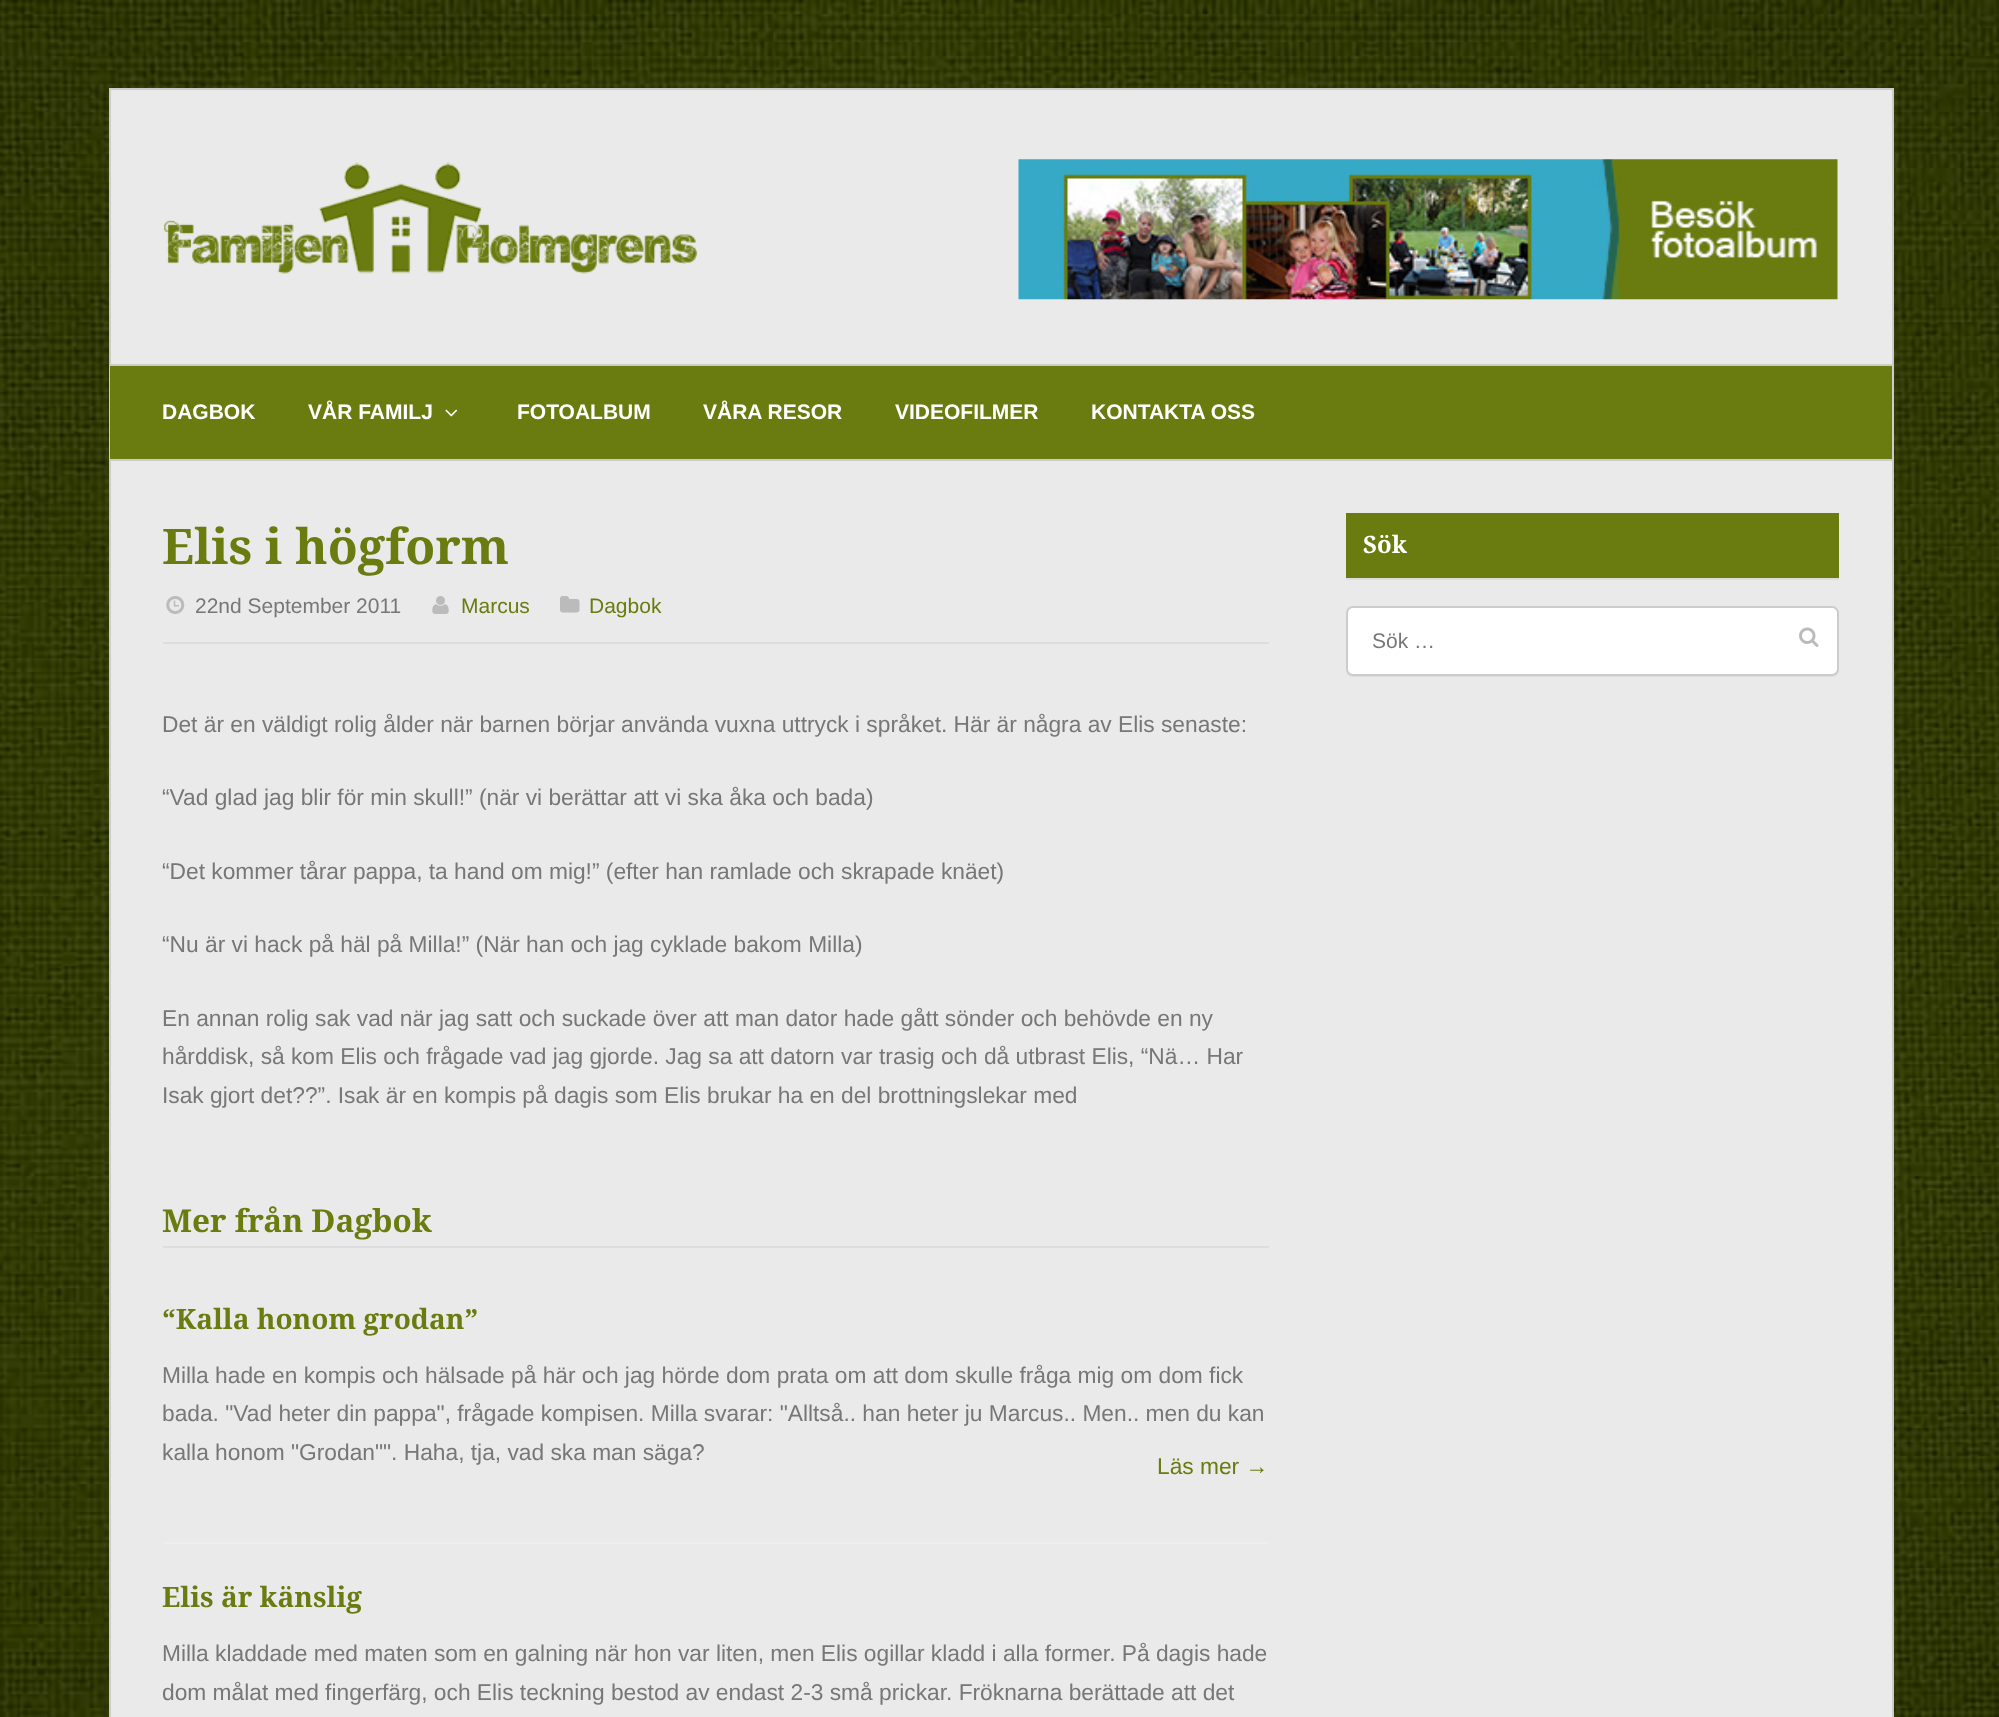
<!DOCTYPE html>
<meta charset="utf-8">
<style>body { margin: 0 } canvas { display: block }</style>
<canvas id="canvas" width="1999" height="1717"></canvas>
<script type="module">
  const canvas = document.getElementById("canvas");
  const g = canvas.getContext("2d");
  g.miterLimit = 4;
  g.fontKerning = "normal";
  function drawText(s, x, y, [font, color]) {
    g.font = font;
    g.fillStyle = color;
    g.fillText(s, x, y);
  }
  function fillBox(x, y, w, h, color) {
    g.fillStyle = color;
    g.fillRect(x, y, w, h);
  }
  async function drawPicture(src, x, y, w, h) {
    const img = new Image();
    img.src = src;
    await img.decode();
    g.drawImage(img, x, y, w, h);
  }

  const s1 = ["bold 21px Liberation Sans", "#FFFFFF"];
  const s2 = ["bold 49px Droid Serif", "#6A7C0F"];
  const s3 = ["21px Liberation Sans", "#777777"];
  const s4 = ["21px Liberation Sans", "#6A7C0F"];
  const s5 = ["22.75px Liberation Sans", "#777777"];
  const s6 = ["bold 31.5px Droid Serif", "#6A7C0F"];
  const s7 = ["bold 28px Droid Serif", "#6A7C0F"];
  const s8 = ["22.75px Liberation Sans", "#6A7C0F"];
  const s9 = ["bold 24px Droid Serif", "#FFFFFF"];

  fillBox(0, 0, 1999, 1717, "#FFFFFF");
  await drawPicture("pic1.png", 0, 0, 1999, 1717);
  g.fillStyle = "rgba(102, 102, 102, 0.1)";
  g.filter = "blur(9px)";
  g.beginPath();
  g.rect(109, 88, 1785, 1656);
  g.fill();
  g.filter = "none";
  g.fillStyle = "#EAEAEA";
  g.beginPath();
  g.rect(110, 89, 1783, 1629);
  g.fill();
  g.strokeStyle = "#CCCCCC";
  g.lineWidth = 2;
  g.stroke();
  await drawPicture("pic2.png", 164, 162, 534, 112);
  await drawPicture("pic3.png", 1018, 159, 820, 141);
  fillBox(110, 366, 1782, 93, "#6A7C0F");
  fillBox(110, 364, 1782, 2, "#CCCCCC");
  fillBox(110, 459, 1782, 2, "#CCCCCC");
  drawText("DAGBOK", 162, 419, s1);
  drawText("VÅR FAMILJ", 308, 419, s1);
  await drawPicture("pic4.png", 445, 409, 13, 8);
  drawText("FOTOALBUM", 517, 419, s1);
  drawText("VÅRA RESOR", 703, 419, s1);
  drawText("VIDEOFILMER", 895, 419, s1);
  drawText("KONTAKTA OSS", 1091, 419, s1);
  drawText("Elis i högform", 162, 564, s2);
  fillBox(163, 642, 1106, 2, "#DDDDDD");
  await drawPicture("pic5.png", 166, 596, 19, 18);
  drawText("22nd September 2011", 195, 613, s3);
  await drawPicture("pic6.png", 432, 596, 17, 18);
  drawText("Marcus", 461, 613, s4);
  await drawPicture("pic7.png", 560, 596, 20, 17);
  drawText("Dagbok", 589, 613, s4);
  drawText("Det är en väldigt rolig ålder när barnen börjar använda vuxna uttryck i språket. Här är några av Elis senaste:", 162, 732, s5);
  drawText("“Vad glad jag blir för min skull!” (när vi berättar att vi ska åka och bada)", 162, 805, s5);
  drawText("“Det kommer tårar pappa, ta hand om mig!” (efter han ramlade och skrapade knäet)", 162, 879, s5);
  drawText("“Nu är vi hack på häl på Milla!” (När han och jag cyklade bakom Milla)", 162, 952, s5);
  drawText("En annan rolig sak vad när jag satt och suckade över att man dator hade gått sönder och behövde en ny", 162, 1026, s5);
  drawText("hårddisk, så kom Elis och frågade vad jag gjorde. Jag sa att datorn var trasig och då utbrast Elis, “Nä… Har", 162, 1064, s5);
  drawText("Isak gjort det??”. Isak är en kompis på dagis som Elis brukar ha en del brottningslekar med", 162, 1103, s5);
  fillBox(163, 1246, 1106, 2, "#DDDDDD");
  drawText("Mer från Dagbok", 162, 1232, s6);
  fillBox(163, 1542, 1106, 2, "#EEEEEE");
  drawText("“Kalla honom grodan”", 162, 1329, s7);
  drawText("Milla hade en kompis och hälsade på här och jag hörde dom prata om att dom skulle fråga mig om dom fick", 162, 1383, s5);
  drawText("bada. \"Vad heter din pappa\", frågade kompisen. Milla svarar: \"Alltså.. han heter ju Marcus.. Men.. men du kan", 162, 1421, s5);
  drawText("kalla honom \"Grodan\"\". Haha, tja, vad ska man säga?", 162, 1460, s5);
  drawText("Läs mer →", 1157, 1474, s8);
  drawText("Elis är känslig", 162, 1607, s7);
  drawText("Milla kladdade med maten som en galning när hon var liten, men Elis ogillar kladd i alla former. På dagis hade", 162, 1661, s5);
  drawText("dom målat med fingerfärg, och Elis teckning bestod av endast 2-3 små prickar. Fröknarna berättade att det", 162, 1700, s5);
  fillBox(1346, 513, 493, 65, "#6A7C0F");
  fillBox(1346, 578, 493, 2, "#DDDDDD");
  drawText("Sök", 1363, 553, s9);
  g.fillStyle = "#DEDEDE";
  g.beginPath();
  g.moveTo(1346, 670);
  g.bezierCurveTo(1346, 674, 1349, 677, 1353, 677);
  g.lineTo(1832, 677);
  g.bezierCurveTo(1836, 677, 1839, 674, 1839, 670);
  g.bezierCurveTo(1838, 673, 1835, 676, 1832, 676);
  g.lineTo(1353, 676);
  g.bezierCurveTo(1350, 676, 1347, 673, 1346, 670);
  g.closePath();
  g.fill();
  g.fillStyle = "#FFFFFF";
  g.beginPath();
  g.roundRect(1347, 607, 491, 68, 6);
  g.fill();
  g.stroke();
  drawText("Sök …", 1372, 648, s3);
  await drawPicture("pic8.png", 1799, 627, 20, 20);
</script>
